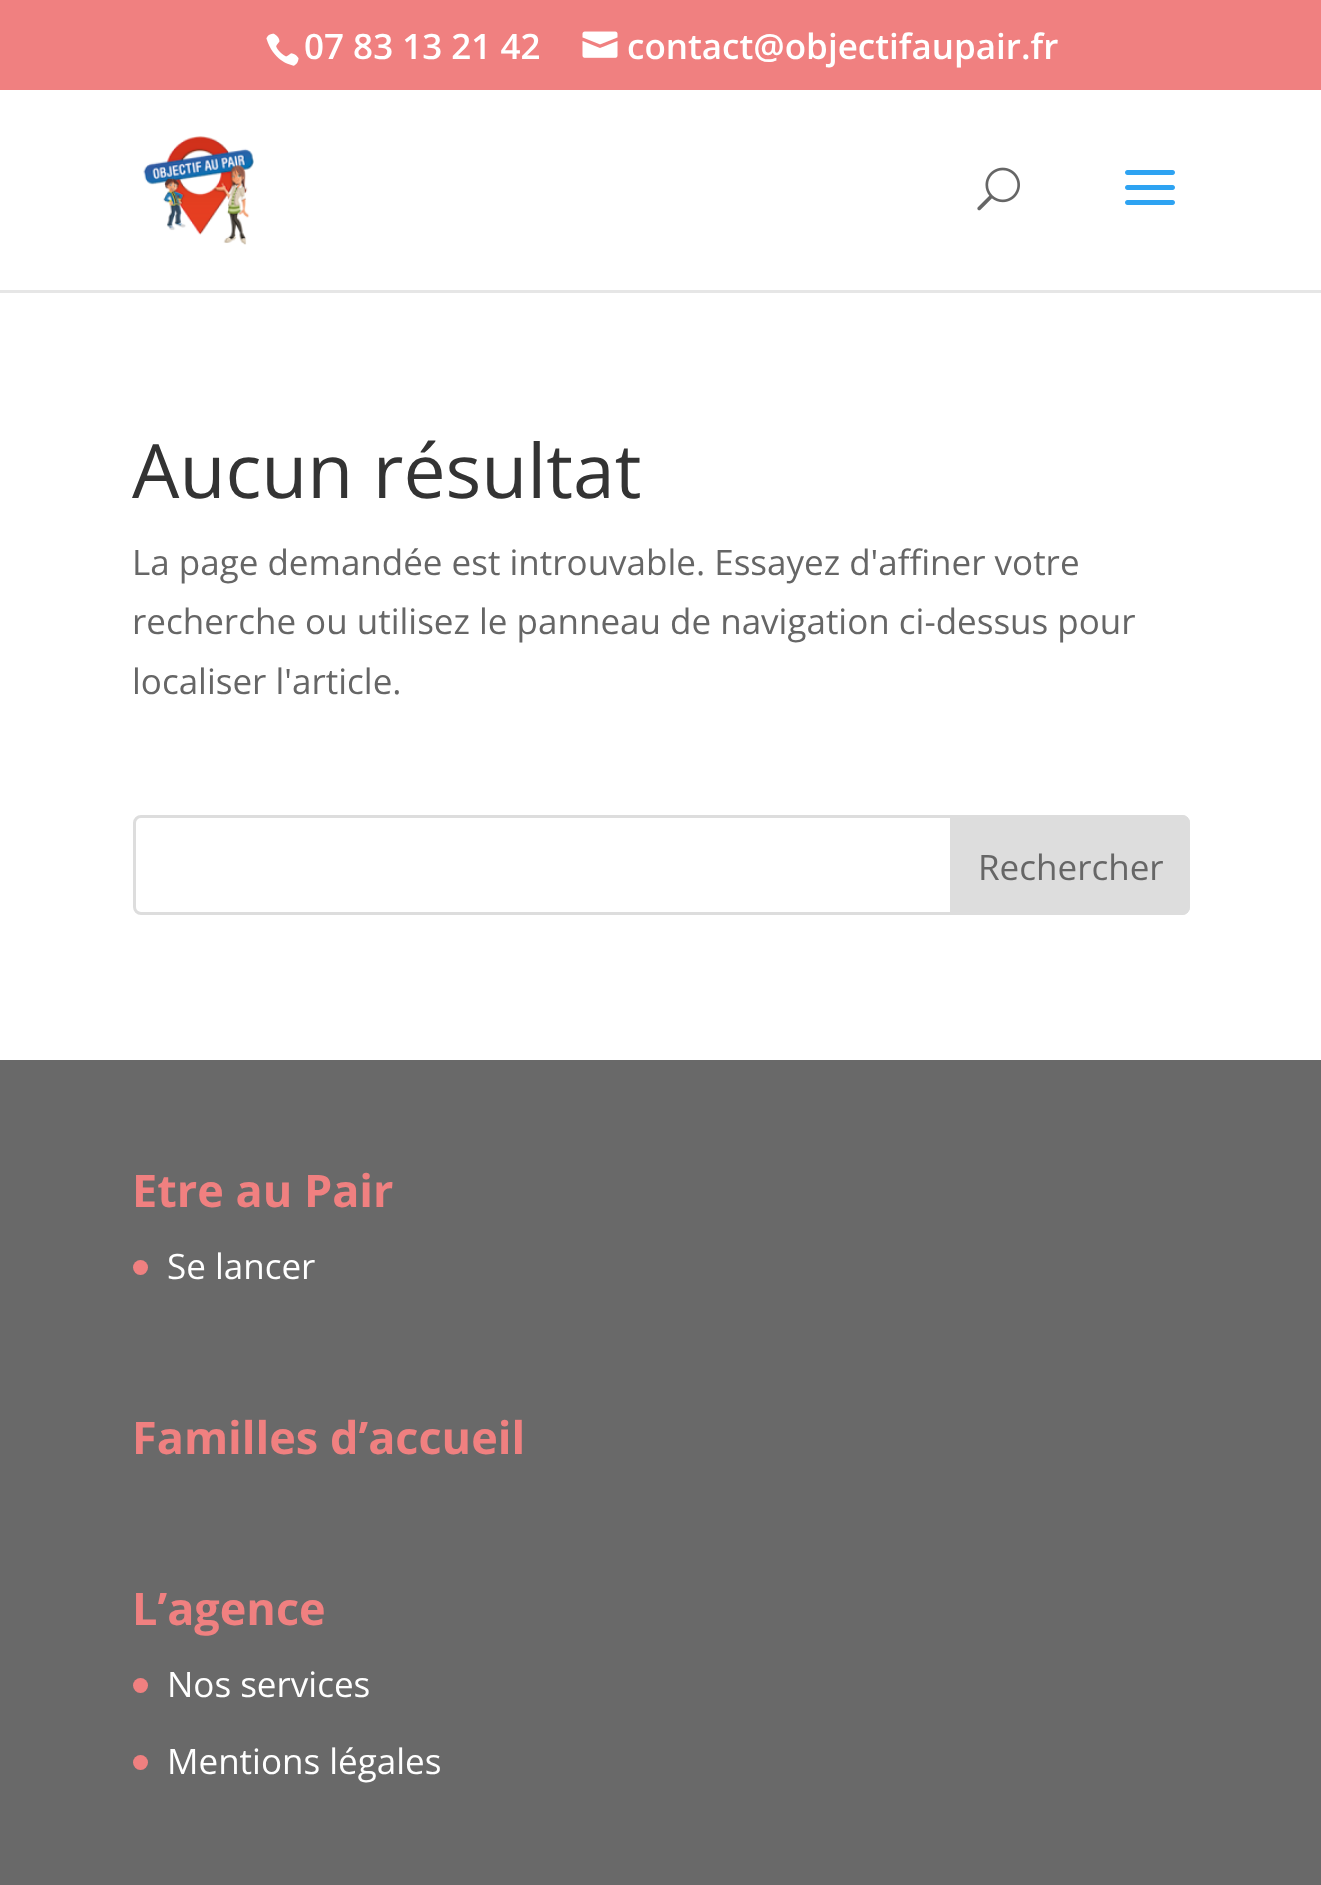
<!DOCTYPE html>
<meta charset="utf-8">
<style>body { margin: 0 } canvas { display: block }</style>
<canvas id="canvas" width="1321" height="1885"></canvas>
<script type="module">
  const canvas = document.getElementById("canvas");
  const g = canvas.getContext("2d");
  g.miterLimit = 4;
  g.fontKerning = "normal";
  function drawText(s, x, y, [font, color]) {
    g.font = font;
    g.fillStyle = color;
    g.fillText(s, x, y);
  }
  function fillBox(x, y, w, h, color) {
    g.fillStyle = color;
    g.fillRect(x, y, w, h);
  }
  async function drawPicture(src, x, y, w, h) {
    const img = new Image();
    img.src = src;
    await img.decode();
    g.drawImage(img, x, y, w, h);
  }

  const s1 = ["600 35px Open Sans", "#FFFFFF"];
  const s2 = ["75px Open Sans", "#333333"];
  const s3 = ["35px Open Sans", "#666666"];
  const s4 = ["bold 45px Open Sans", "#F08080"];
  const s5 = ["35px Open Sans", "#FFFFFF"];

  fillBox(0, 0, 1321, 1885, "#FFFFFF");
  fillBox(0, 0, 1321, 90, "#F08080");
  await drawPicture("pic1.png", 266, 33, 33, 33);
  drawText("07 83 13 21 42", 304, 59, s1);
  await drawPicture("pic2.png", 582, 31, 36, 27);
  drawText("contact@objectifaupair.fr", 627, 59, s1);
  g.fillStyle = "#E6E6E6";
  g.beginPath();
  g.moveTo(0, 290);
  g.lineTo(0, 293);
  g.lineTo(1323, 293);
  g.lineTo(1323, 93);
  g.lineTo(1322, 93);
  g.lineTo(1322, 290);
  g.closePath();
  g.fill();
  await drawPicture("pic3.png", 143, 136, 111, 109);
  await drawPicture("pic4.png", 977, 167, 43, 44);
  await drawPicture("pic5.png", 1125, 170, 50, 35);
  drawText("Aucun résultat", 132, 498, s2);
  drawText("La page demandée est introuvable. Essayez d'affiner votre", 132, 575, s3);
  drawText("recherche ou utilisez le panneau de navigation ci-dessus pour", 132, 634, s3);
  drawText("localiser l'article.", 132, 694, s3);
  g.beginPath();
  g.roundRect(134.5, 816.5, 1054, 97, 6.5);
  g.strokeStyle = "#DDDDDD";
  g.lineWidth = 3;
  g.stroke();
  g.fillStyle = "#DDDDDD";
  g.beginPath();
  g.roundRect(951.5, 816.5, 237, 97, [0, 6.5, 6.5, 0]);
  g.fill();
  g.stroke();
  drawText("Rechercher", 978, 880, s3);
  fillBox(0, 1060, 1321, 825, "#696969");
  drawText("Etre au Pair", 132, 1207, s4);
  g.beginPath();
  g.arc(140.5, 1267.5, 7.5, 0, Math.PI * 2);
  g.fill();
  drawText("Se lancer", 167, 1279, s5);
  drawText("Familles d’accueil", 132, 1454, s4);
  drawText("L’agence", 132, 1625, s4);
  g.beginPath();
  g.arc(140.5, 1685.5, 7.5, 0, Math.PI * 2);
  g.fill();
  drawText("Nos services", 167, 1697, s5);
  g.fillStyle = "#F08080";
  g.beginPath();
  g.arc(140.5, 1762.5, 7.5, 0, Math.PI * 2);
  g.fill();
  drawText("Mentions légales", 167, 1774, s5);
</script>
